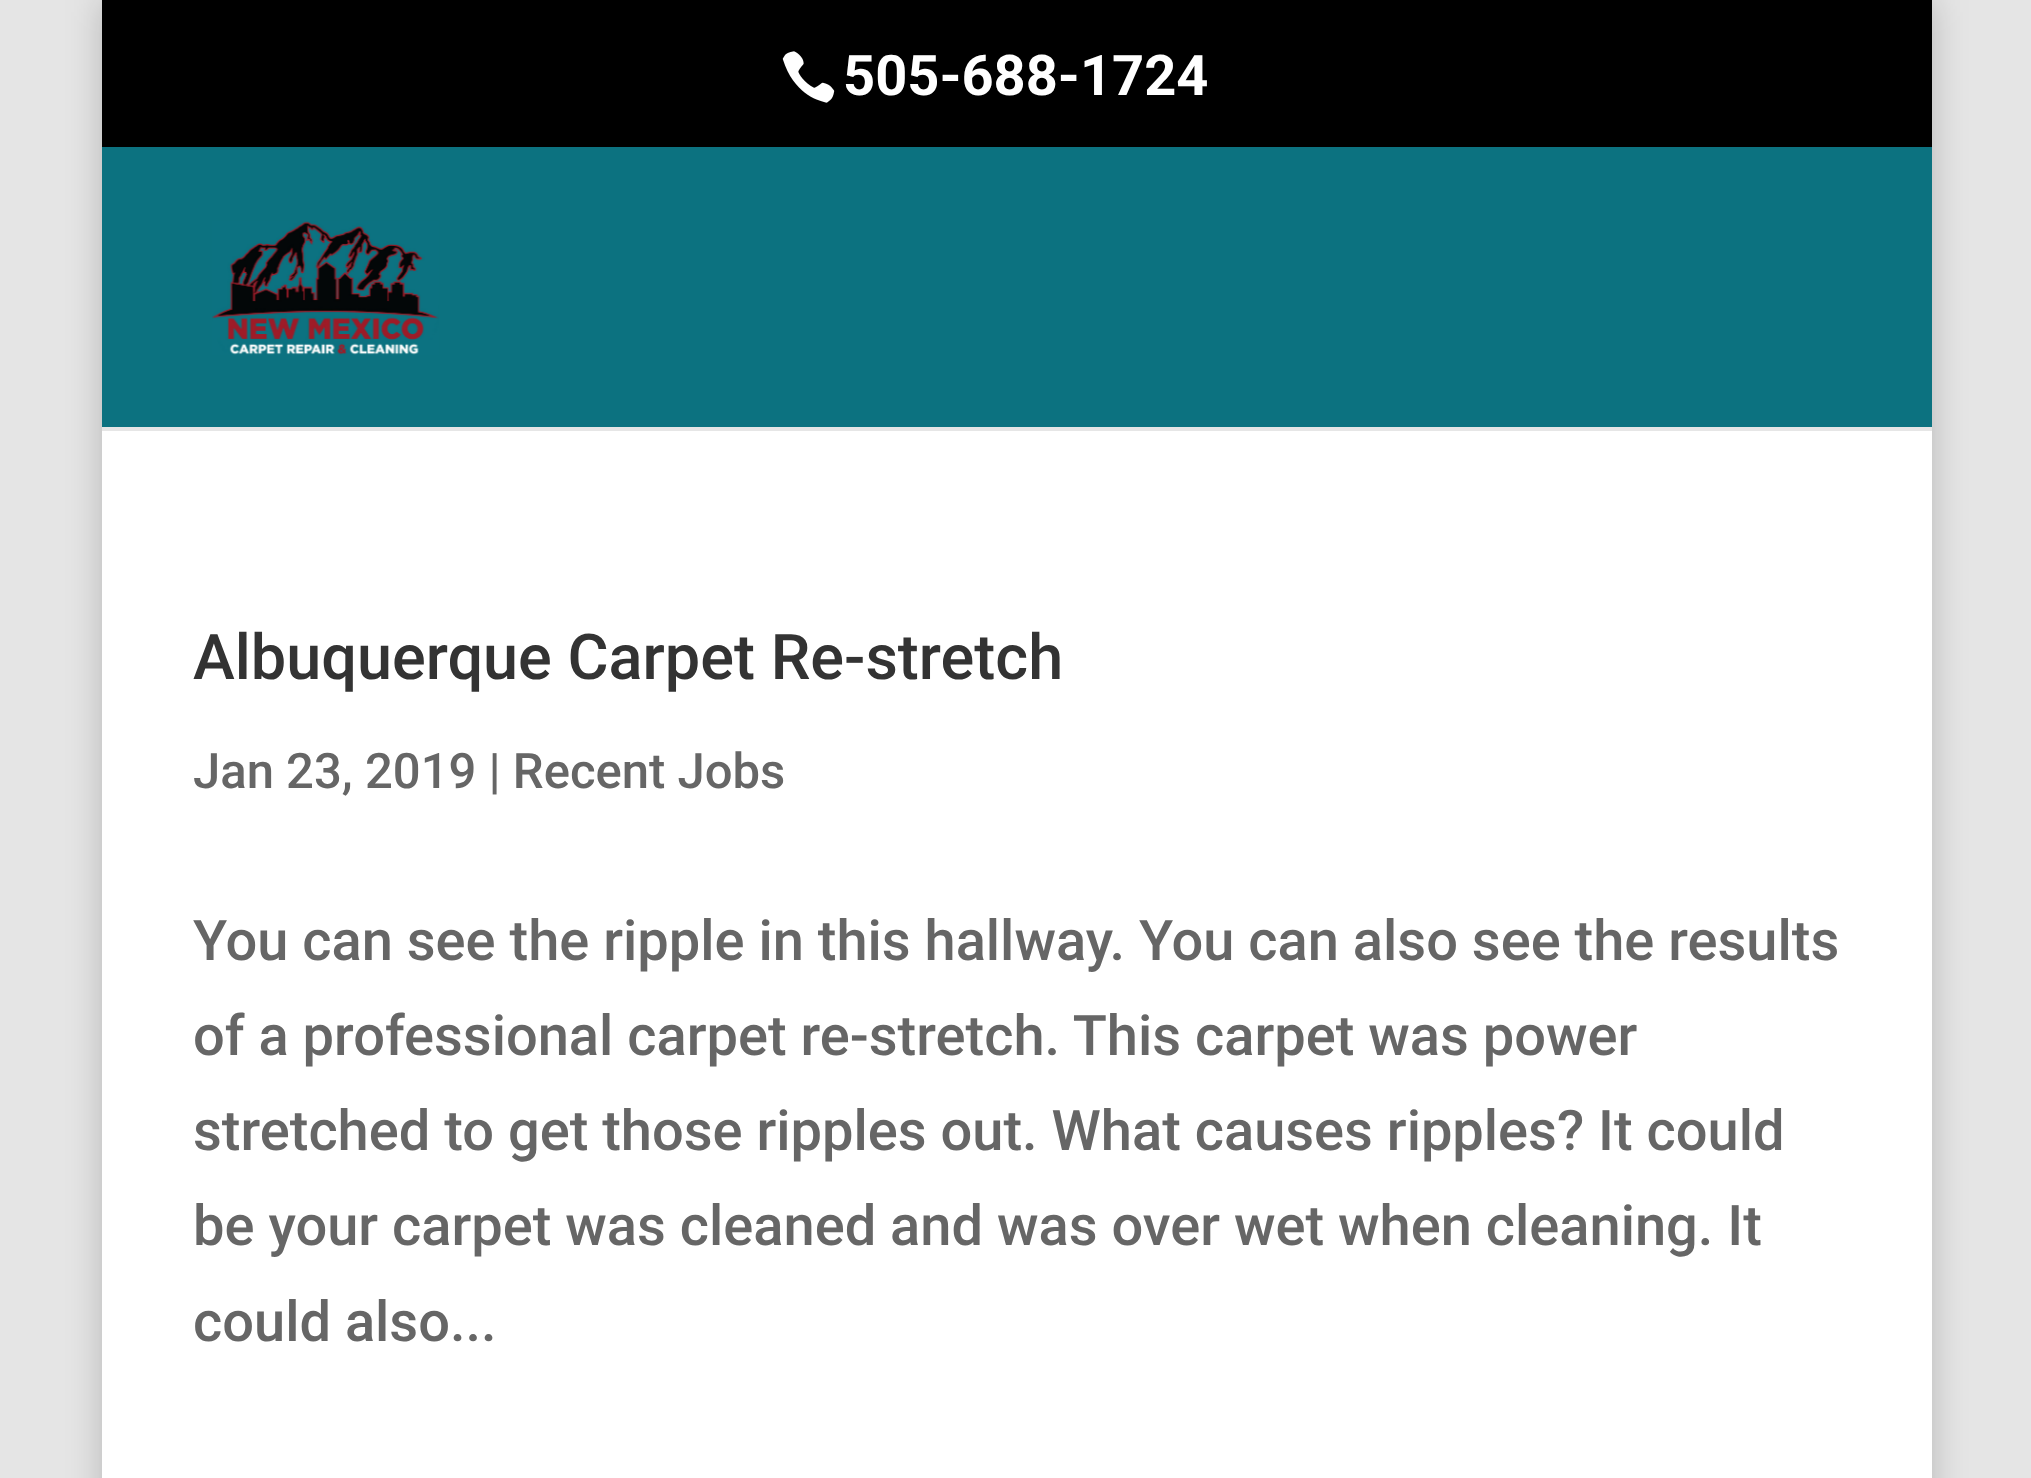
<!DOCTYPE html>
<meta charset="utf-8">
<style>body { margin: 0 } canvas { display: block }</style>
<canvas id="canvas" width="2031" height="1478"></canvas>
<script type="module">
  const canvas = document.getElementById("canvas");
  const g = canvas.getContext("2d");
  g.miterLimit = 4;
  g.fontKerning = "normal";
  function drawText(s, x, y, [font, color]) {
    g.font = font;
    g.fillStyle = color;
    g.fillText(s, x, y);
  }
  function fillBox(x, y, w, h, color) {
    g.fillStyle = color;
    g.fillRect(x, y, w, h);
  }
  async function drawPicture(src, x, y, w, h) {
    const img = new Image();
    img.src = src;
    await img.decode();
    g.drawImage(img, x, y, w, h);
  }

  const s1 = ["bold 56px Roboto", "#FFFFFF"];
  const s2 = ["500 63px Roboto", "#333333"];
  const s3 = ["500 49px Roboto", "#666666"];
  const s4 = ["500 56px Roboto", "#666666"];

  fillBox(0, 0, 2031, 1478, "#E5E5E5");
  g.fillStyle = "rgba(0, 0, 0, 0.2)";
  g.filter = "blur(17.5px)";
  g.beginPath();
  g.rect(102, 0, 1830, 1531);
  g.fill();
  g.filter = "none";
  fillBox(102, 0, 1830, 147, "#000000");
  await drawPicture("pic1.png", 782, 51, 53, 52);
  drawText("505-688-1724", 843, 95, s1);
  fillBox(102, 427, 1830, 4, "#E6E6E6");
  fillBox(102, 147, 1830, 280, "#0C7280");
  await drawPicture("pic2.png", 212, 221, 227, 134);
  fillBox(102, 431, 1830, 1047, "#FFFFFF");
  drawText("Albuquerque Carpet Re-stretch", 193, 679, s2);
  drawText("Jan 23, 2019 | Recent Jobs", 193, 788, s3);
  drawText("You can see the ripple in this hallway. You can also see the results", 193, 960, s4);
  drawText("of a professional carpet re-stretch. This carpet was power", 193, 1055, s4);
  drawText("stretched to get those ripples out. What causes ripples? It could", 193, 1150, s4);
  drawText("be your carpet was cleaned and was over wet when cleaning. It", 193, 1245, s4);
  drawText("could also...", 193, 1341, s4);
</script>
